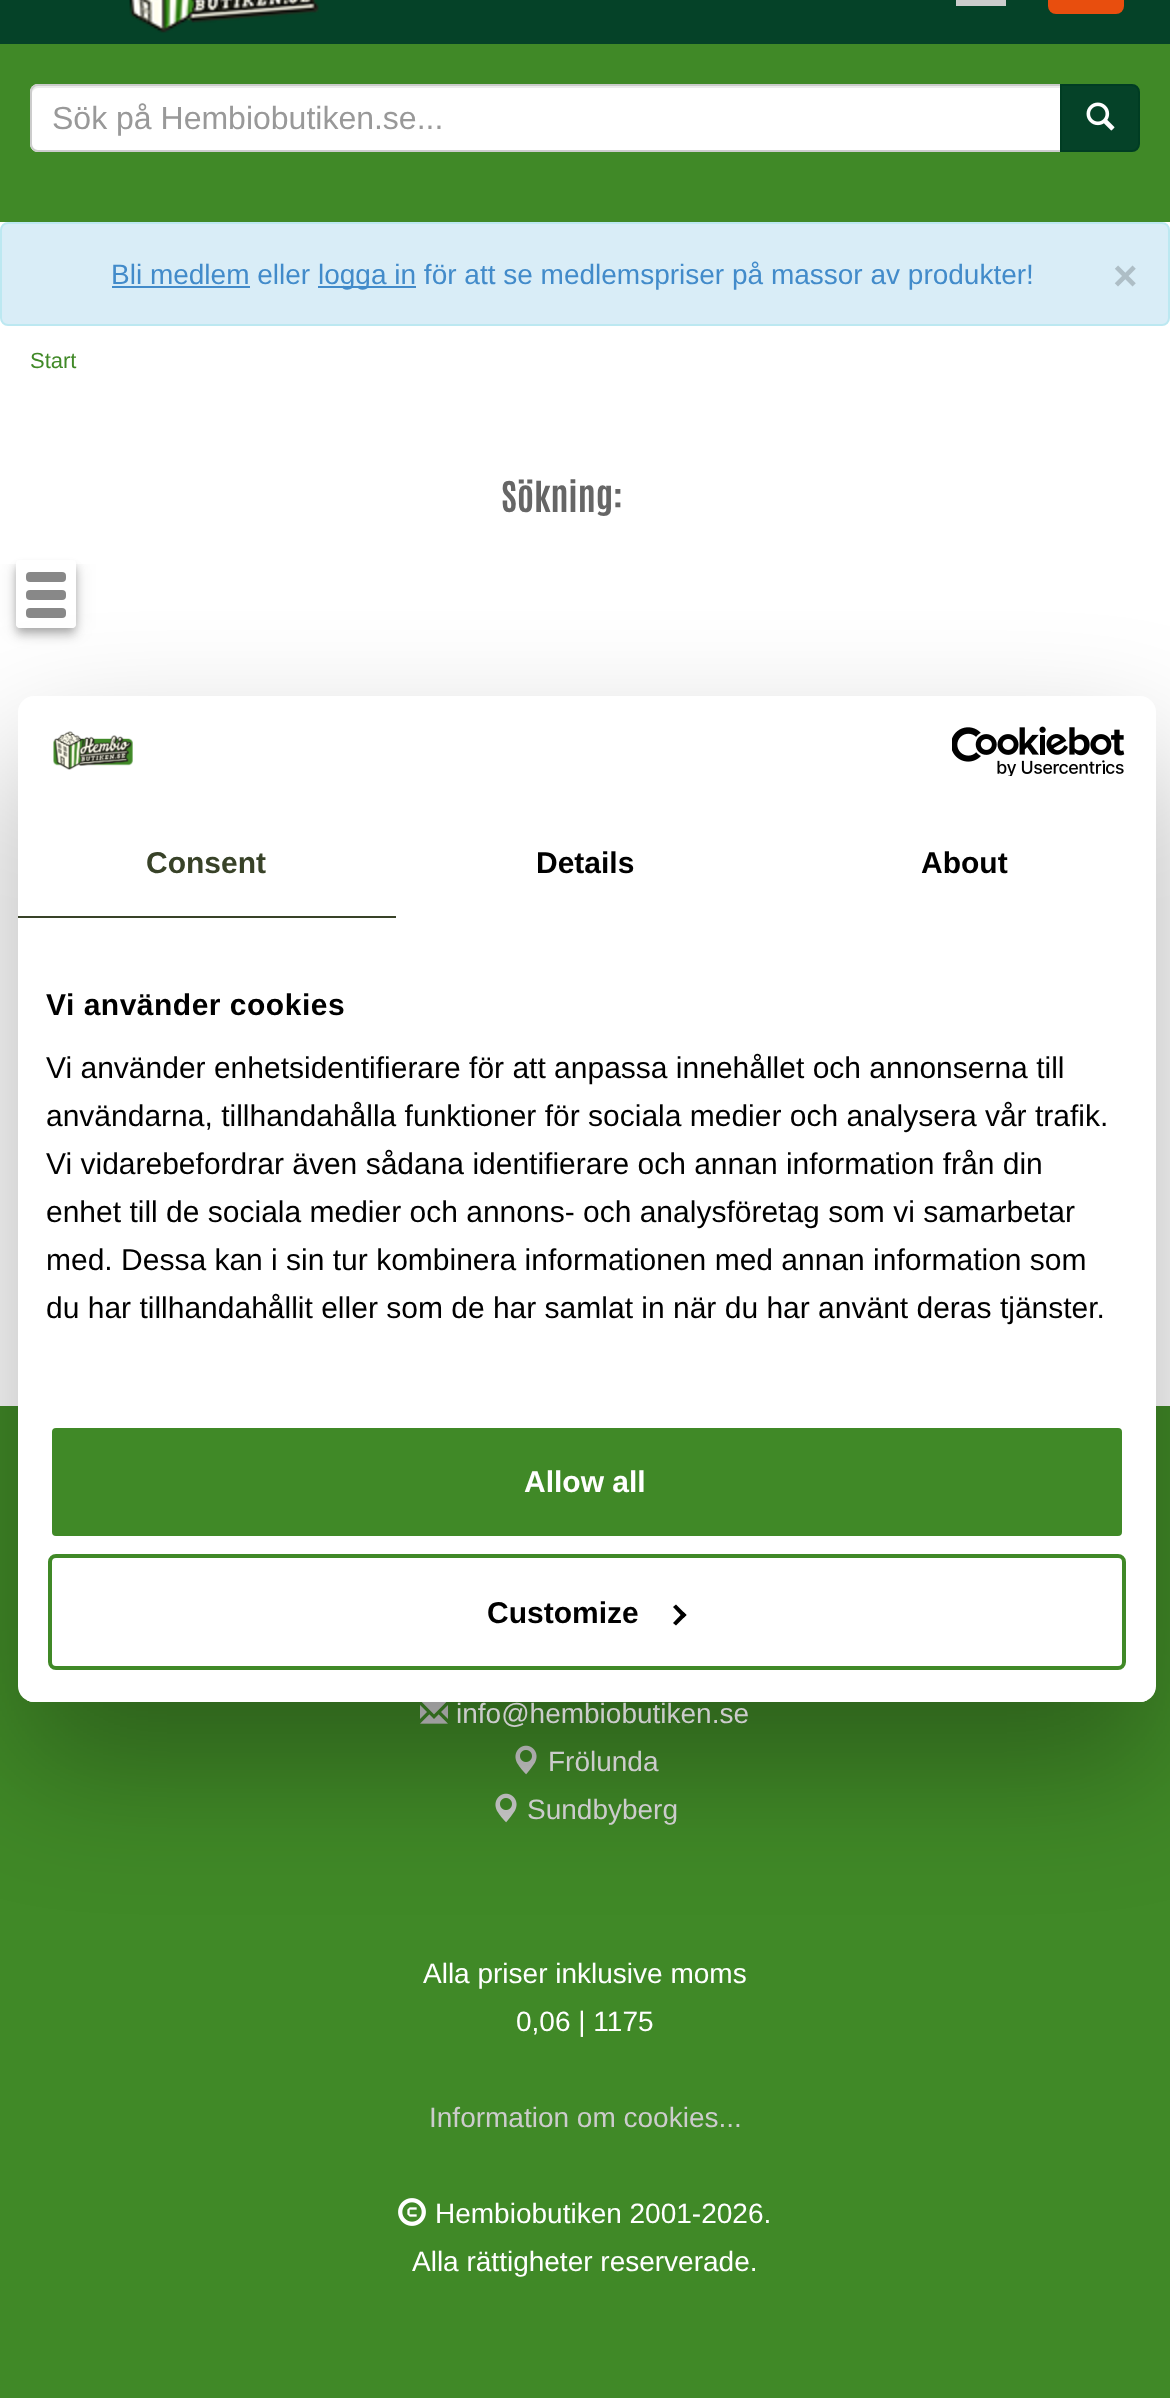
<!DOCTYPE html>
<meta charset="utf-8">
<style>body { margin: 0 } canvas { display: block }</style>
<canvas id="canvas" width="1170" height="2398"></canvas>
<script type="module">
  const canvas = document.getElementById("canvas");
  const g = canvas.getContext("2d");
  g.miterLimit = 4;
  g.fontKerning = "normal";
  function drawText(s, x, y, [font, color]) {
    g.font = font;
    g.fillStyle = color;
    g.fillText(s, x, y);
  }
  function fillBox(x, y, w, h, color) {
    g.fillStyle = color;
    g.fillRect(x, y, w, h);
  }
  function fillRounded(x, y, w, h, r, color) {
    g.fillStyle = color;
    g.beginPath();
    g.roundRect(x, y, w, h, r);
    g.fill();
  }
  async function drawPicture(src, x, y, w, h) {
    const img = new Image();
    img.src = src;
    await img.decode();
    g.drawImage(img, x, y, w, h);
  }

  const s1 = ["32px Liberation Sans", "#999999"];
  const s2 = ["28px Liberation Sans", "#428BCA"];
  const s3 = ["bold 42px Liberation Sans", "#AEBEC6"];
  const s4 = ["22px Liberation Sans", "#408927"];
  const s5 = ["bold 36px Antonio", "#666666"];
  const s6 = ["bold 30px Liberation Sans", "#384228"];
  const s7 = ["bold 30px Liberation Sans", "#000000"];
  const s8 = ["30px Liberation Sans", "#000000"];
  const s9 = ["bold 30px Liberation Sans", "#FFFFFF"];
  const s10 = ["28px Liberation Sans", "#CCCCCC"];
  const s11 = ["28px Liberation Sans", "#FFFFFF"];

  fillBox(0, 0, 1170, 2398, "#FFFFFF");
  fillBox(0, 0, 1170, 44, "#054228");
  await drawPicture("pic1.png", 129, 0, 190, 33);
  g.fillStyle = "#CCCCCC";
  g.beginPath();
  g.moveTo(956, 6);
  g.lineTo(956, 0);
  g.lineTo(973, -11);
  g.lineTo(973, -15);
  g.bezierCurveTo(968, -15, 963, -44, 981, -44);
  g.bezierCurveTo(999, -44, 994, -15, 989, -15);
  g.lineTo(989, -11);
  g.lineTo(1006, 0);
  g.lineTo(1006, 6);
  g.closePath();
  g.fill();
  fillRounded(1048, -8, 76, 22, 8, "#E84E0E");
  fillBox(0, 44, 1170, 178, "#408927");
  g.fillStyle = "#FFFFFF";
  g.beginPath();
  g.roundRect(30, 84, 1032, 68, [8, 0, 0, 8]);
  g.fill();
  g.fillStyle = "#ECECEC";
  g.beginPath();
  g.moveTo(38, 88);
  g.lineTo(1060, 88);
  g.lineTo(1060, 86);
  g.lineTo(38, 86);
  g.bezierCurveTo(33, 86, 32, 90, 32, 94);
  g.bezierCurveTo(32, 91, 35, 88, 38, 88);
  g.closePath();
  g.fill();
  g.beginPath();
  g.roundRect(31, 85, 1030, 66, [7, 0, 0, 7]);
  g.strokeStyle = "#CCCCCC";
  g.lineWidth = 2;
  g.stroke();
  drawText("Sök på Hembiobutiken.se...", 52, 129, s1);
  g.fillStyle = "#054228";
  g.beginPath();
  g.roundRect(1061, 85, 78, 66, [0, 7, 7, 0]);
  g.fill();
  g.strokeStyle = "#003D23";
  g.stroke();
  await drawPicture("pic2.png", 1086, 102, 29, 29);
  g.fillStyle = "#D9EDF7";
  g.beginPath();
  g.roundRect(1, 223, 1168, 102, 7);
  g.fill();
  g.strokeStyle = "#BCE8F1";
  g.stroke();
  drawText("Bli medlem eller", 111, 284, s2);
  fillBox(112, 286, 138, 2, "#428BCA");
  fillBox(318, 286, 98, 2, "#428BCA");
  drawText("logga in för att se medlemspriser på massor av produkter!", 318, 284, s2);
  drawText("×", 1113, 290, s3);
  drawText("Start", 30, 368, s4);
  drawText("Sökning:", 501, 512, s5);
  g.save();
  g.beginPath();
  g.moveTo(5, 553);
  g.lineTo(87, 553);
  g.lineTo(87, 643);
  g.lineTo(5, 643);
  g.closePath();
  g.moveTo(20, 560);
  g.lineTo(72, 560);
  g.bezierCurveTo(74, 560, 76, 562, 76, 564);
  g.lineTo(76, 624);
  g.bezierCurveTo(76, 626, 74, 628, 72, 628);
  g.lineTo(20, 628);
  g.bezierCurveTo(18, 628, 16, 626, 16, 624);
  g.lineTo(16, 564);
  g.bezierCurveTo(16, 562, 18, 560, 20, 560);
  g.closePath();
  g.clip("evenodd");
  g.fillStyle = "rgba(0, 0, 0, 0.2)";
  g.filter = "blur(4px)";
  g.beginPath();
  g.roundRect(18, 566, 56, 64, 2);
  g.fill();
  g.filter = "none";
  g.restore();
  g.save();
  g.beginPath();
  g.rect(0, 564, 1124, 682);
  g.clip();
  g.fillStyle = "rgba(0, 0, 0, 0.12)";
  g.filter = "blur(10px)";
  g.beginPath();
  g.roundRect(16, 562, 60, 68, 4);
  g.fill();
  g.filter = "none";
  g.restore();
  g.save();
  g.beginPath();
  g.moveTo(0, 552);
  g.lineTo(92, 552);
  g.lineTo(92, 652);
  g.lineTo(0, 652);
  g.closePath();
  g.moveTo(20, 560);
  g.lineTo(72, 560);
  g.bezierCurveTo(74, 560, 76, 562, 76, 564);
  g.lineTo(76, 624);
  g.bezierCurveTo(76, 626, 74, 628, 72, 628);
  g.lineTo(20, 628);
  g.bezierCurveTo(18, 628, 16, 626, 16, 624);
  g.lineTo(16, 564);
  g.bezierCurveTo(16, 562, 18, 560, 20, 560);
  g.closePath();
  g.clip("evenodd");
  g.fillStyle = "rgba(0, 0, 0, 0.14)";
  g.filter = "blur(5px)";
  g.beginPath();
  g.roundRect(16, 568, 60, 68, 4);
  g.fill();
  g.filter = "none";
  g.restore();
  g.fillStyle = "#FFFFFF";
  g.beginPath();
  g.roundRect(16, 564, 60, 64, [0, 0, 4, 4]);
  g.fill();
  fillRounded(26, 590, 40, 10, 4, "#888888");
  fillRounded(26, 572, 40, 10, 4, "#888888");
  fillRounded(26, 608, 40, 10, 4, "#888888");
  fillBox(0, 1406, 1170, 992, "#408927");
  await drawPicture("pic5.png", 420, 1702, 28, 22);
  await drawPicture("pic6.png", 515, 1745, 22, 30);
  await drawPicture("pic6.png", 495, 1793, 22, 30);
  g.fillStyle = "rgba(0, 0, 0, 0.3)";
  g.filter = "blur(68px)";
  g.beginPath();
  g.roundRect(18, 760, 1138, 1006, 16);
  g.fill();
  g.filter = "none";
  fillRounded(18, 696, 1138, 1006, 16, "#FFFFFF");
  await drawPicture("pic3.png", 53, 731, 80, 39);
  await drawPicture("pic4.png", 952, 726, 173, 50);
  fillBox(18, 916, 378, 2, "#384228");
  drawText("Consent", 146, 873, s6);
  drawText("Details", 536, 873, s7);
  drawText("About", 921, 873, s7);
  g.letterSpacing = "0.5px";
  drawText("Vi använder cookies", 46, 1015, s7);
  g.letterSpacing = "0px";
  drawText("Vi använder enhetsidentifierare för att anpassa innehållet och annonserna till", 46, 1078, s8);
  drawText("användarna, tillhandahålla funktioner för sociala medier och analysera vår trafik.", 46, 1126, s8);
  drawText("Vi vidarebefordrar även sådana identifierare och annan information från din", 46, 1174, s8);
  drawText("enhet till de sociala medier och annons- och analysföretag som vi samarbetar", 46, 1222, s8);
  drawText("med. Dessa kan i sin tur kombinera informationen med annan information som", 46, 1270, s8);
  drawText("du har tillhandahållit eller som de har samlat in när du har använt deras tjänster.", 46, 1318, s8);
  g.save();
  g.beginPath();
  g.roundRect(18, 696, 1138, 1006, 16);
  g.clip();
  fillBox(18, 1700, 1138, 2, "#FFFFFF");
  g.restore();
  g.fillStyle = "#408927";
  g.beginPath();
  g.roundRect(50, 1426, 1074, 112, 6);
  g.fill();
  g.strokeStyle = "#FFFFFF";
  g.lineWidth = 4;
  g.stroke();
  drawText("Allow all", 524, 1492, s9);
  g.beginPath();
  g.roundRect(50, 1556, 1074, 112, 6);
  g.strokeStyle = "#408927";
  g.stroke();
  drawText("Customize", 487, 1623, s7);
  g.beginPath();
  g.moveTo(676, 1604.5);
  g.lineTo(686.5, 1615);
  g.lineTo(683.5, 1618);
  g.lineTo(673, 1607);
  g.closePath();
  g.fill();
  g.beginPath();
  g.moveTo(683.5, 1612);
  g.lineTo(686.5, 1615);
  g.lineTo(676, 1625.5);
  g.lineTo(673, 1623);
  g.closePath();
  g.fill();
  drawText("info@hembiobutiken.se", 456, 1723, s10);
  drawText("Frölunda", 548, 1771, s10);
  drawText("Sundbyberg", 527, 1819, s10);
  drawText("Alla priser inklusive moms", 423, 1983, s11);
  drawText("0,06 | 1175", 516, 2031, s11);
  drawText("Information om cookies...", 429, 2127, s10);
  await drawPicture("pic7.png", 398, 2198, 28, 28);
  drawText("Hembiobutiken 2001-2026.", 435, 2223, s11);
  drawText("Alla rättigheter reserverade.", 412, 2271, s11);
</script>
